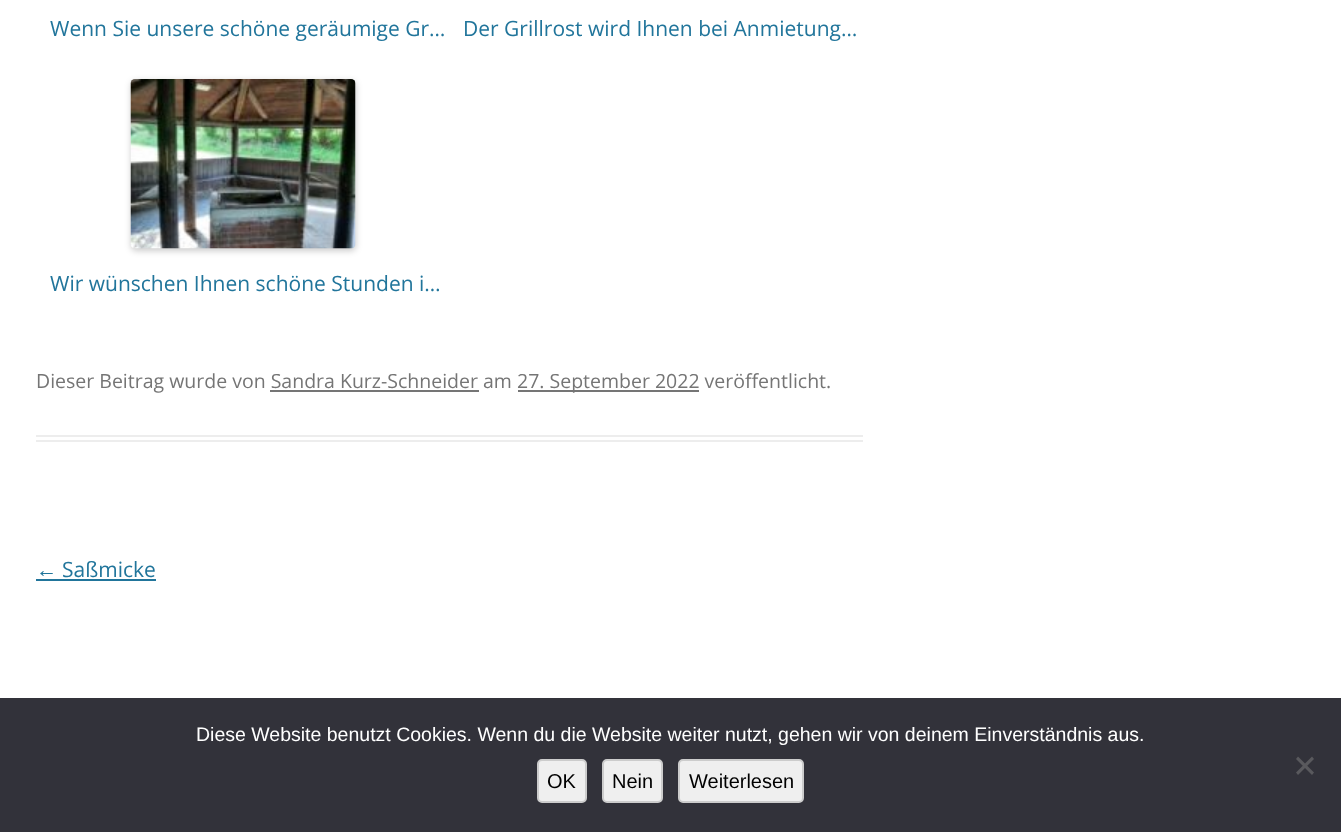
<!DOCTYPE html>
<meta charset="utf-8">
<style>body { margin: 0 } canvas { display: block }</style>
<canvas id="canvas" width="1341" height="832"></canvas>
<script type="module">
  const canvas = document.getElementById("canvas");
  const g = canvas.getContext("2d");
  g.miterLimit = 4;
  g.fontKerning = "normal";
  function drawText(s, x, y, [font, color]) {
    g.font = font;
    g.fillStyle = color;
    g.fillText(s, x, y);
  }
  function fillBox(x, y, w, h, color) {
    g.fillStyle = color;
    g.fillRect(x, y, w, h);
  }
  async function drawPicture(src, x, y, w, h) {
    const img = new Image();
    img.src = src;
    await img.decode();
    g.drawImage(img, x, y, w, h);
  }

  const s1 = ["21px Open Sans", "#21759B"];
  const s2 = ["19.5px Open Sans", "#757575"];
  const s3 = ["21px Liberation Sans", "#21759B"];
  const s4 = ["19.5px Liberation Sans", "#FFFFFF"];
  const s5 = ["20px Liberation Sans", "#000000"];

  fillBox(0, 0, 1341, 832, "#FFFFFF");
  fillBox(36, 435, 827, 2, "#EDEDED");
  fillBox(36, 440, 827, 2, "#EDEDED");
  drawText("Wenn Sie unsere schöne geräumige Gr…", 50, 36, s1);
  drawText("Der Grillrost wird Ihnen bei Anmietung…", 463, 36, s1);
  g.fillStyle = "rgba(0, 0, 0, 0.2)";
  g.filter = "blur(3px)";
  g.beginPath();
  g.roundRect(131, 81, 225, 170, 5);
  g.fill();
  g.filter = "none";
  await drawPicture("pic1.png", 130, 79, 226, 170);
  drawText("Wir wünschen Ihnen schöne Stunden i…", 50, 291, s1);
  drawText("Dieser Beitrag wurde von Sandra Kurz-Schneider am", 36, 388, s2);
  fillBox(518, 390, 181, 2, "#757575");
  drawText("27. September 2022 veröffentlicht.", 517, 388, s2);
  fillBox(270, 390, 209, 2, "#757575");
  drawText("←", 36, 577, s3);
  fillBox(36, 579, 120, 2, "#21759B");
  drawText("Saßmicke", 62, 577, s1);
  fillBox(0, 698, 1341, 134, "#32323A");
  drawText("Diese Website benutzt Cookies. Wenn du die Website weiter nutzt, gehen wir von deinem Einverständnis aus.", 196, 741, s4);
  g.fillStyle = "#59595D";
  g.beginPath();
  g.moveTo(1312, 756.5);
  g.lineTo(1314, 759);
  g.lineTo(1298, 775);
  g.lineTo(1296, 772.5);
  g.closePath();
  g.fill();
  g.beginPath();
  g.moveTo(1296, 759);
  g.lineTo(1298, 756.5);
  g.lineTo(1314, 772.5);
  g.lineTo(1312, 775);
  g.closePath();
  g.fill();
  g.fillStyle = "#EFEFEF";
  g.beginPath();
  g.roundRect(538, 760, 48, 42, 4);
  g.fill();
  g.strokeStyle = "#CCCCCC";
  g.lineWidth = 2;
  g.stroke();
  drawText("OK", 547, 788, s5);
  g.fillStyle = "#EFEFEF";
  g.beginPath();
  g.roundRect(603, 760, 59, 42, 4);
  g.fill();
  g.stroke();
  drawText("Nein", 612, 788, s5);
  g.fillStyle = "#EFEFEF";
  g.beginPath();
  g.roundRect(679, 760, 124, 42, 4);
  g.fill();
  g.stroke();
  drawText("Weiterlesen", 689, 788, s5);
</script>
